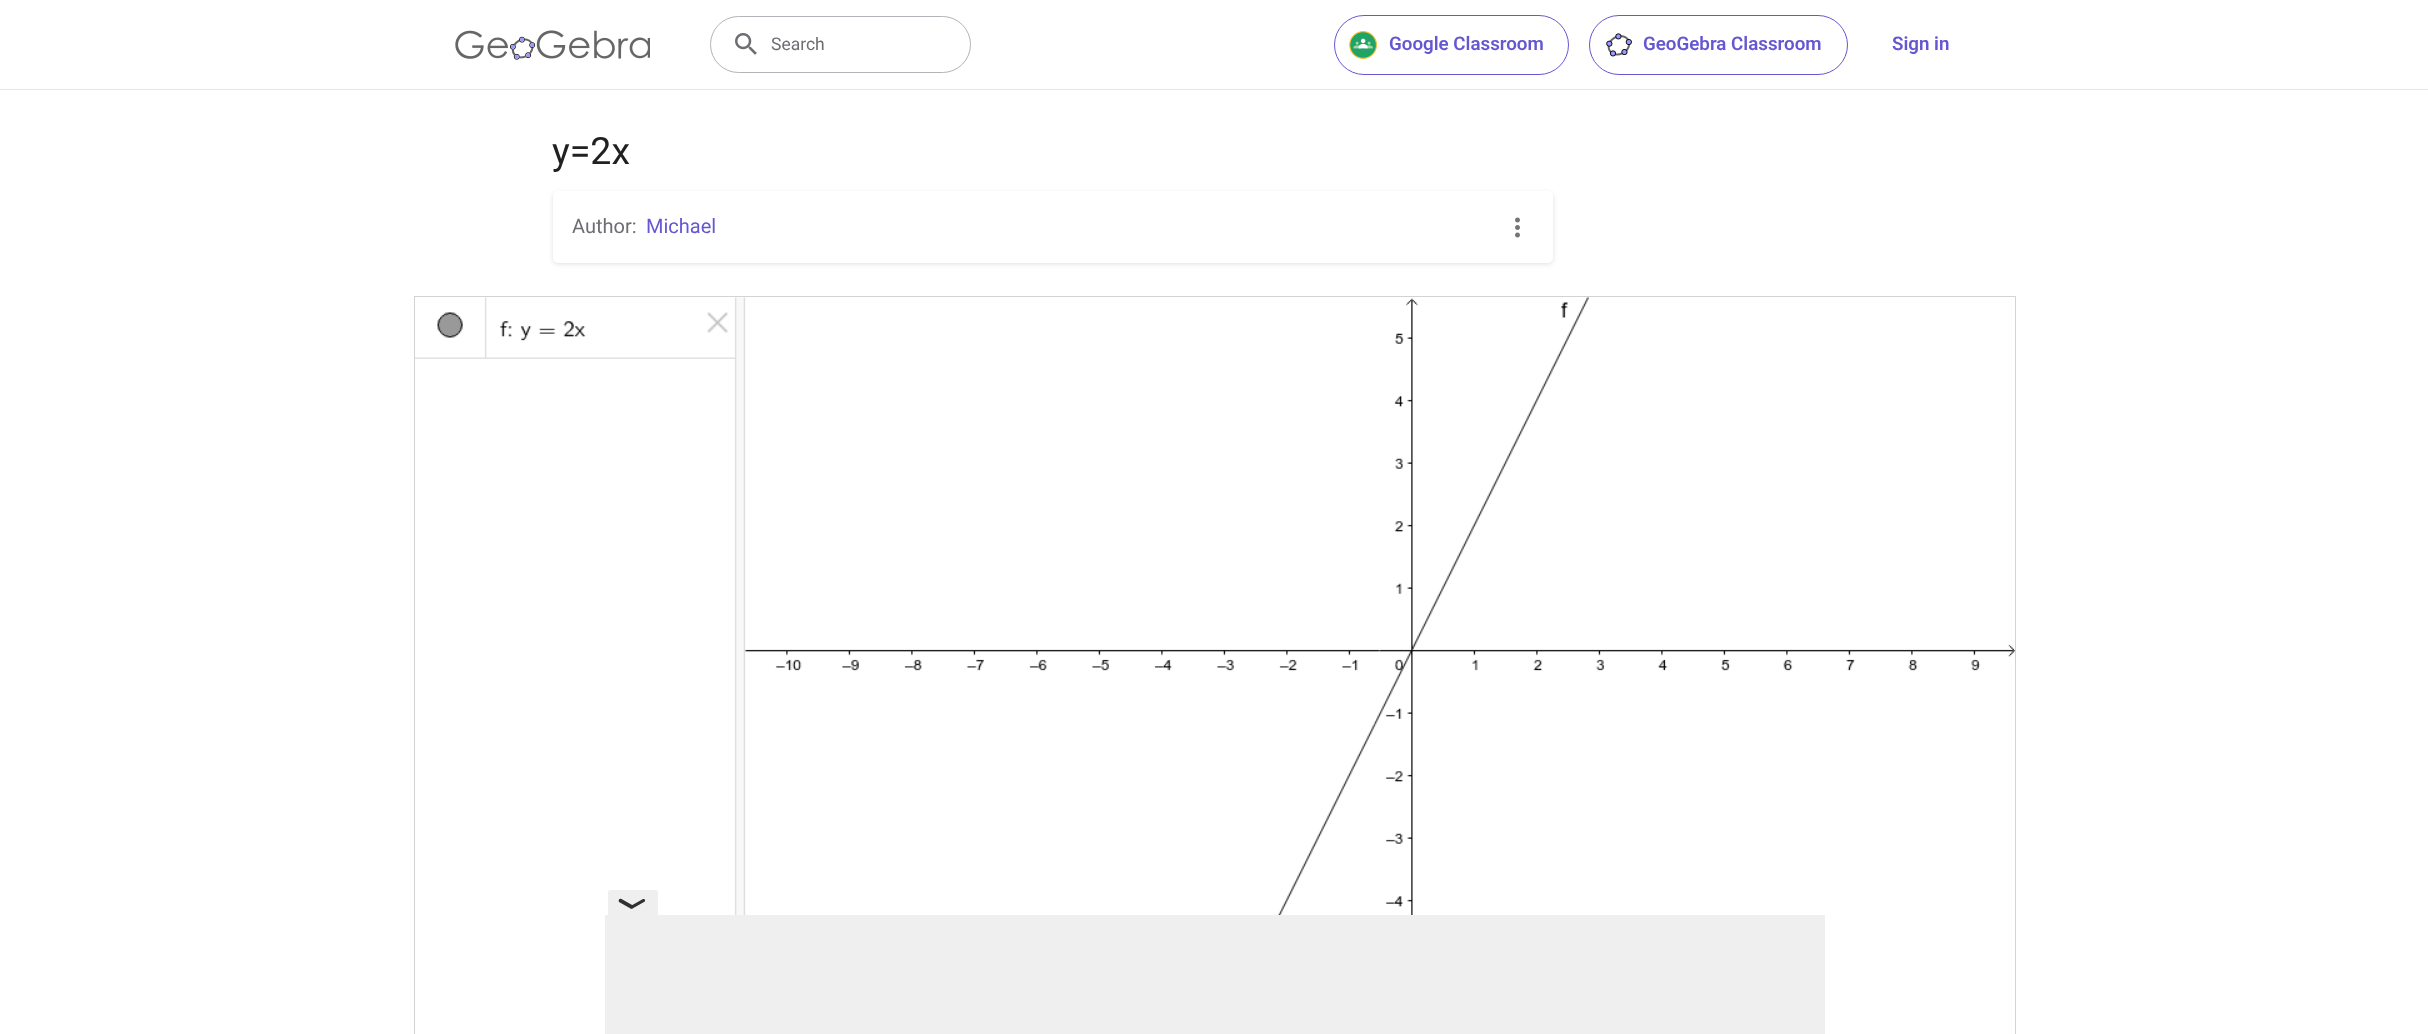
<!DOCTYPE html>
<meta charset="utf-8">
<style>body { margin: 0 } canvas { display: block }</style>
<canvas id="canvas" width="2428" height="1034"></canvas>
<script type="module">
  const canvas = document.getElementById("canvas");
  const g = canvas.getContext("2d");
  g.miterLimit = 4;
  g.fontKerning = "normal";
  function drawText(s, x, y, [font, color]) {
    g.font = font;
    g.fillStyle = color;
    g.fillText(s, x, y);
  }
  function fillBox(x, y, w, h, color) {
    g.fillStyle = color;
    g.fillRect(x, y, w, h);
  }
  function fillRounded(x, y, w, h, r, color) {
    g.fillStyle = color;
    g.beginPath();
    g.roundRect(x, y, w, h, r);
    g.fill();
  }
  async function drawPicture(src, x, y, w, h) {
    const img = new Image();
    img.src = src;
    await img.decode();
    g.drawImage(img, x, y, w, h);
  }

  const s1 = ["17.5px Roboto", "#6E6D73"];
  const s2 = ["600 18.75px Roboto", "#6557D2"];
  const s3 = ["37.5px Roboto", "#212121"];
  const s4 = ["20px Roboto", "#6E6D73"];
  const s5 = ["20px Roboto", "#6557D2"];

  fillBox(0, 0, 2428, 1034, "#FFFFFF");
  fillBox(0, 89, 2428, 1, "#E6E6EB");
  await drawPicture("pic1.png", 455, 30, 195, 30);
  g.beginPath();
  g.roundRect(710.5, 16.5, 260, 56, 28);
  g.strokeStyle = "#B4B3BA";
  g.stroke();
  await drawPicture("pic2.png", 735, 33, 22, 22);
  drawText("Search", 771, 50, s1);
  g.beginPath();
  g.roundRect(1334.5, 15.5, 234, 59, 29.5);
  g.strokeStyle = "#6557D2";
  g.stroke();
  await drawPicture("pic3.png", 1349, 31, 28, 28);
  drawText("Google Classroom", 1389, 50, s2);
  g.beginPath();
  g.roundRect(1589.5, 15.5, 258, 59, 29.5);
  g.stroke();
  await drawPicture("pic4.png", 1606, 33, 26, 24);
  drawText("GeoGebra Classroom", 1643, 50, s2);
  drawText("Sign in", 1892, 50, s2);
  drawText("y=2x", 552, 164, s3);
  g.fillStyle = "rgba(28, 28, 31, 0.14)";
  g.filter = "blur(2.5px)";
  g.beginPath();
  g.roundRect(553, 193, 1000, 71, 5);
  g.fill();
  g.filter = "none";
  fillRounded(553, 191, 1000, 72, 5, "#FFFFFF");
  drawText("Author:", 572, 233, s4);
  drawText("Michael", 646, 233, s5);
  await drawPicture("pic5.png", 1515, 217, 5, 21);
  await drawPicture("pic6.png", 415, 297, 1600, 737);
  g.strokeStyle = "#D3D3D3";
  g.strokeRect(414.5, 296.5, 1601, 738);
  g.fillStyle = "#EFEFEF";
  g.beginPath();
  g.roundRect(608, 890, 50, 25, [2.5, 2.5, 0, 0]);
  g.fill();
  g.fillStyle = "#313131";
  g.beginPath();
  g.moveTo(621.5, 899);
  g.lineTo(633, 905.5);
  g.bezierCurveTo(634, 907.5, 632, 909.5, 630.5, 908.5);
  g.lineTo(619, 902);
  g.bezierCurveTo(618, 900, 619.5, 898, 621.5, 899);
  g.closePath();
  g.fill();
  g.beginPath();
  g.moveTo(631.5, 905.5);
  g.lineTo(643, 899);
  g.bezierCurveTo(645, 898.5, 646, 901, 644, 902);
  g.lineTo(632.5, 908.5);
  g.bezierCurveTo(630.5, 909, 630, 906, 631.5, 905.5);
  g.closePath();
  g.fill();
  fillBox(605, 915, 1220, 119, "#EFEFEF");
</script>
